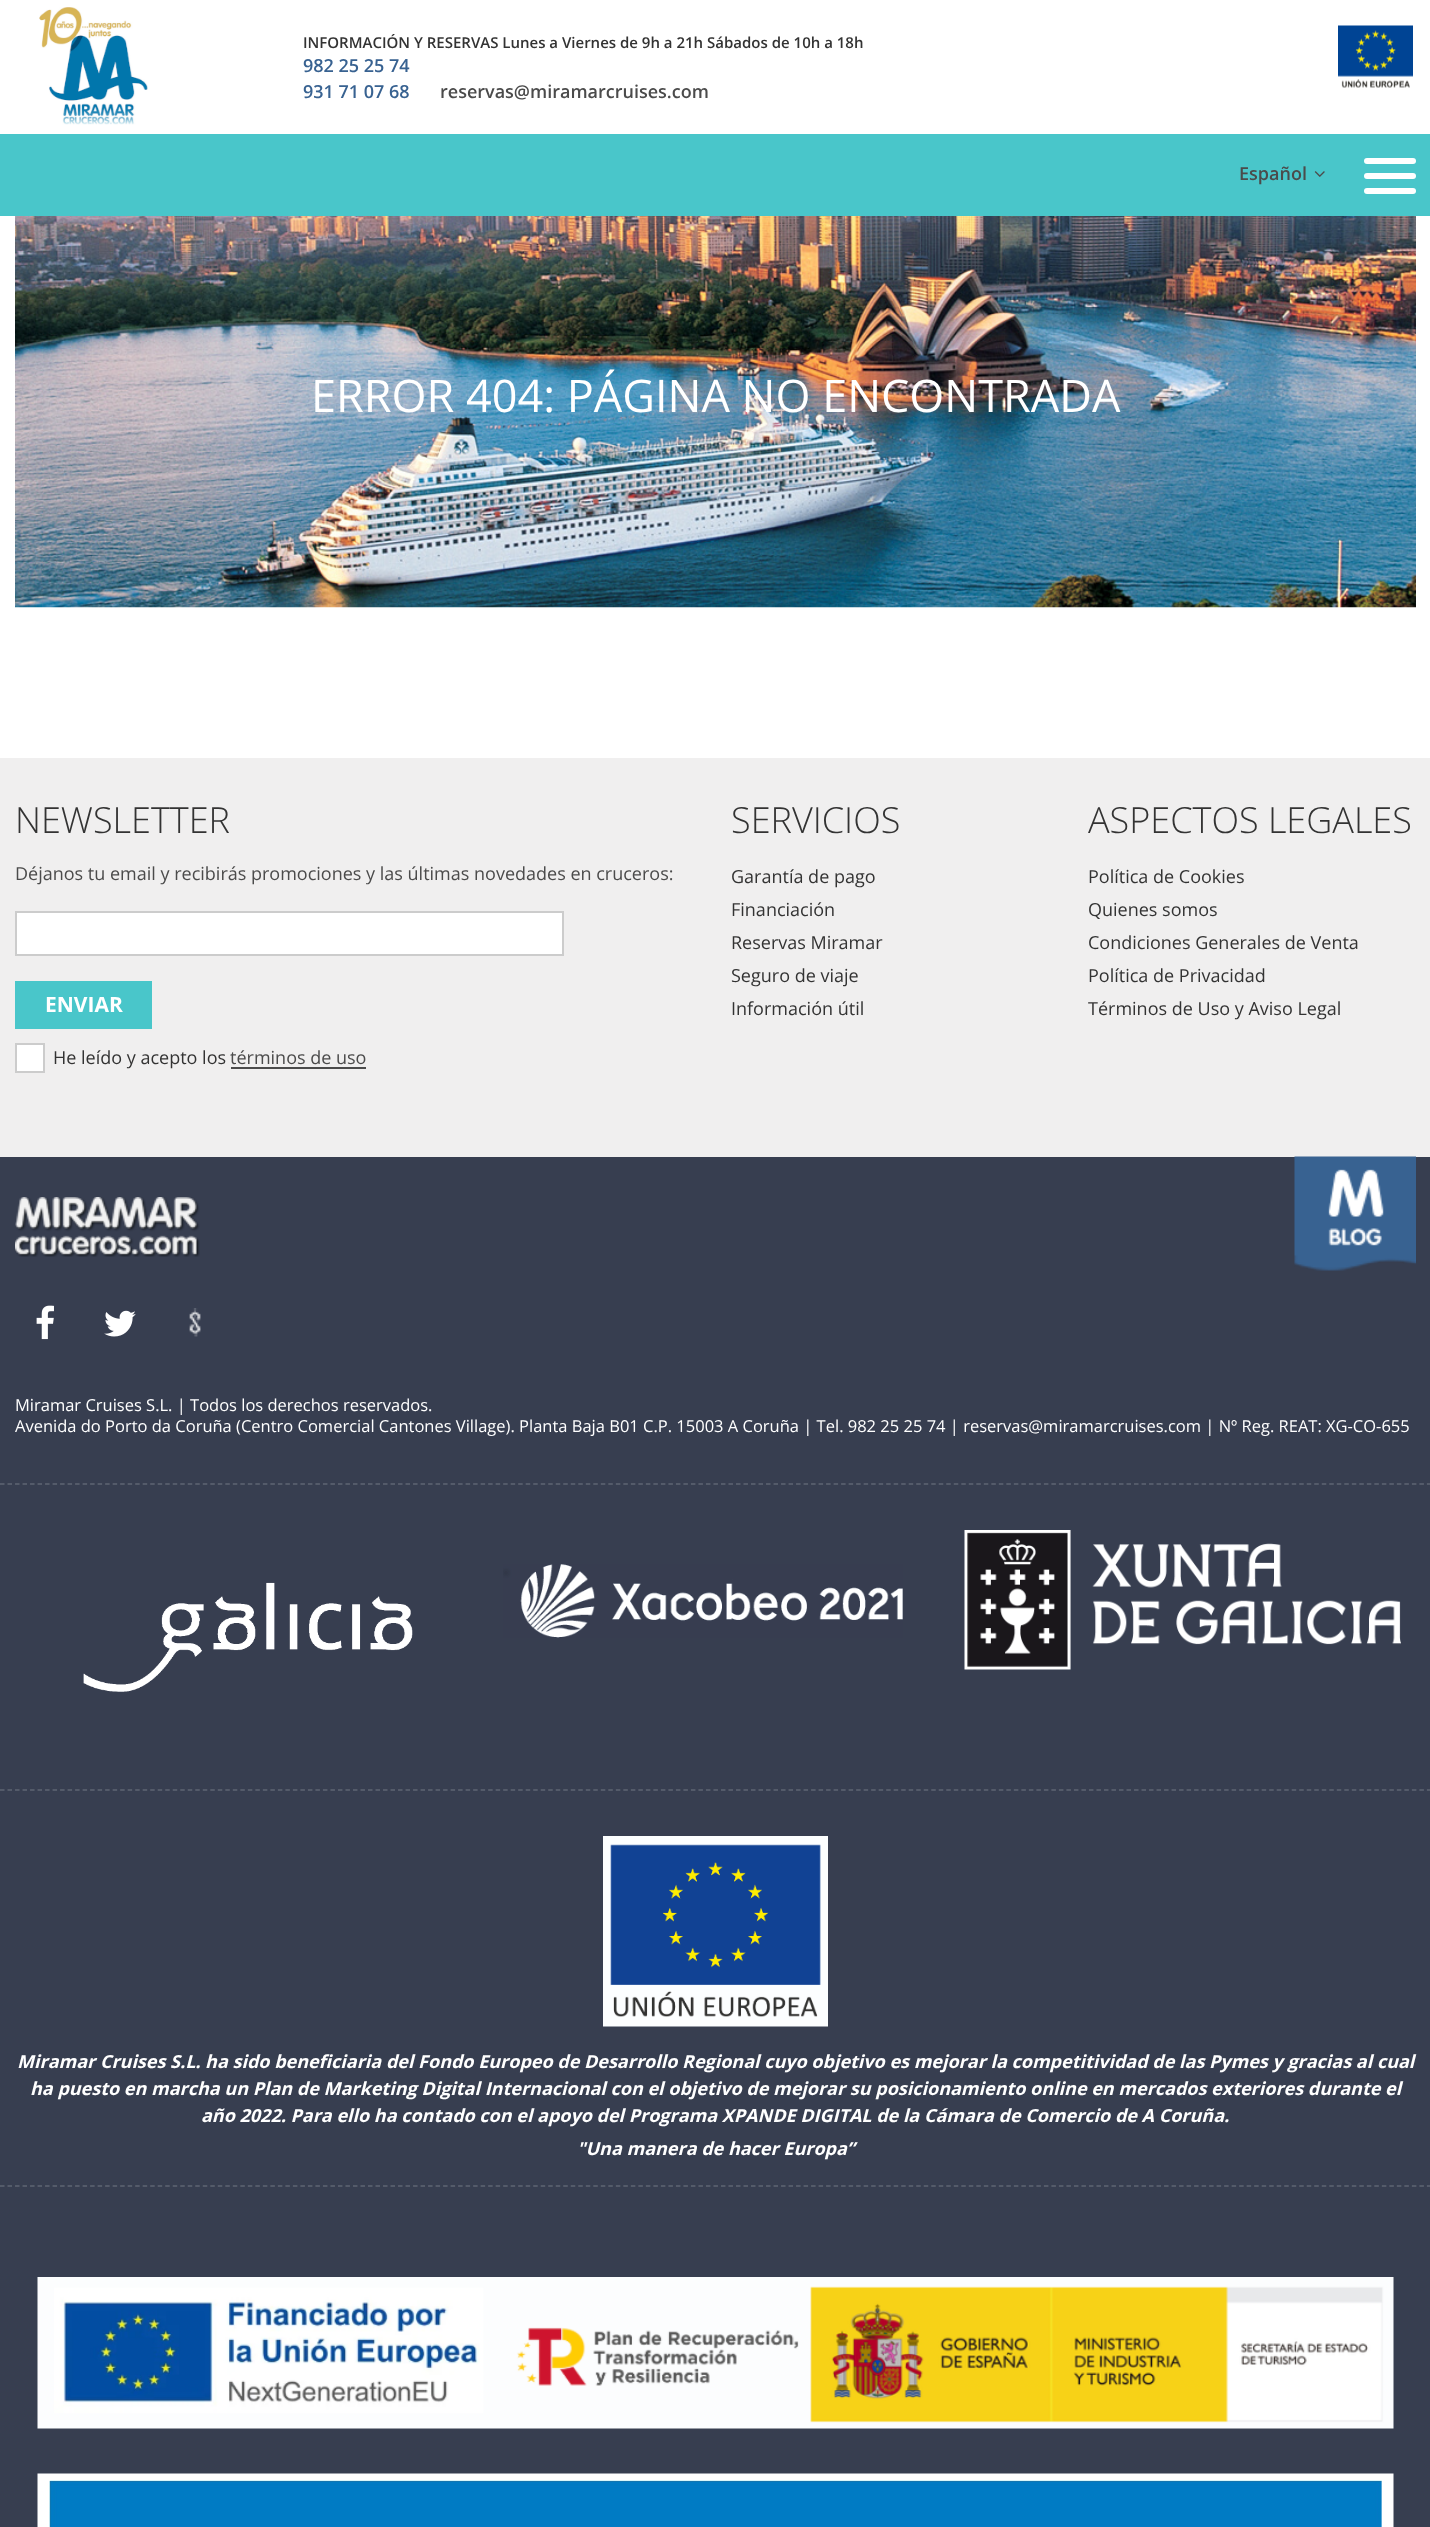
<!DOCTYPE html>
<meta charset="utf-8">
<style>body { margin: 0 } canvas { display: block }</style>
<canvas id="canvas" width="1430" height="2527"></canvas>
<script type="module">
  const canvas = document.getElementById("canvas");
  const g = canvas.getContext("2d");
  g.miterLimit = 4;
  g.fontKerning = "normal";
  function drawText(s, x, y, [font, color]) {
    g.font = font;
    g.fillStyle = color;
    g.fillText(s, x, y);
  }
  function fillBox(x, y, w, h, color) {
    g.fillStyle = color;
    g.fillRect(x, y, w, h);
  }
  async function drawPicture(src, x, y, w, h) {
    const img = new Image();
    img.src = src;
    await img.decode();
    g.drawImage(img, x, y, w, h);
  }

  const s1 = ["600 15px Open Sans", "#333333"];
  const s2 = ["600 18px Open Sans", "#386291"];
  const s3 = ["600 18px Open Sans", "#4B4B4B"];
  const s4 = ["45px Open Sans", "#FFFFFF"];
  const s5 = ["300 36px Open Sans", "#333333"];
  const s6 = ["18px Open Sans", "#4B4B4B"];
  const s7 = ["bold 21px Open Sans", "#FFFFFF"];
  const s8 = ["18px Open Sans", "#333333"];
  const s9 = ["16.5px Open Sans", "#FFFFFF"];
  const s10 = ["italic bold 18px Open Sans", "#FFFFFF"];

  fillBox(0, 0, 1430, 2527, "#FFFFFF");
  fillBox(0, 134, 1430, 82, "#49C6CA");
  await drawPicture("pic1.png", 39, 7, 109, 118);
  drawText("INFORMACIÓN Y RESERVAS Lunes a Viernes de 9h a 21h Sábados de 10h a 18h", 303, 48, s1);
  drawText("982 25 25 74", 303, 72, s2);
  drawText("931 71 07 68", 303, 98, s2);
  drawText("reservas@miramarcruises.com", 440, 98, s3);
  await drawPicture("pic2.png", 1338, 25, 75, 63);
  drawText("Español", 1239, 180, s3);
  await drawPicture("pic3.png", 1314, 171, 11, 6);
  g.fillStyle = "#FFFFFF";
  g.beginPath();
  g.roundRect(1364, 158, 27, 6, [3, 0, 0, 3]);
  g.fill();
  g.beginPath();
  g.roundRect(1391, 158, 25, 6, [0, 3, 3, 0]);
  g.fill();
  g.beginPath();
  g.roundRect(1364, 173, 27, 6, [3, 0, 0, 3]);
  g.fill();
  g.beginPath();
  g.roundRect(1391, 173, 25, 6, [0, 3, 3, 0]);
  g.fill();
  g.beginPath();
  g.roundRect(1364, 188, 27, 6, [3, 0, 0, 3]);
  g.fill();
  g.beginPath();
  g.roundRect(1391, 188, 25, 6, [0, 3, 3, 0]);
  g.fill();
  await drawPicture("pic4.png", 15, 216, 1401, 392);
  drawText("ERROR 404: PÁGINA NO ENCONTRADA", 311, 412, s4);
  fillBox(0, 758, 1430, 399, "#F0EFEF");
  drawText("NEWSLETTER", 15, 833, s5);
  drawText("Déjanos tu email y recibirás promociones y las últimas novedades en cruceros:", 15, 880, s6);
  g.fillStyle = "#FFFFFF";
  g.beginPath();
  g.rect(16, 912, 547, 43);
  g.fill();
  g.strokeStyle = "#CCCCCC";
  g.lineWidth = 2;
  g.stroke();
  fillBox(15, 981, 137, 48, "#49C6CA");
  drawText("ENVIAR", 45, 1012, s7);
  g.beginPath();
  g.rect(16, 1044, 28, 28);
  g.fill();
  g.stroke();
  drawText("He leído y acepto los", 53, 1064, s8);
  drawText("términos de uso", 230, 1064, s6);
  fillBox(231, 1067, 135, 2, "#4B4B4B");
  drawText("SERVICIOS", 731, 833, s5);
  drawText("Garantía de pago", 731, 883, s8);
  drawText("Financiación", 731, 916, s8);
  drawText("Reservas Miramar", 731, 949, s8);
  drawText("Seguro de viaje", 731, 982, s8);
  drawText("Información útil", 731, 1015, s8);
  drawText("ASPECTOS LEGALES", 1088, 833, s5);
  drawText("Política de Cookies", 1088, 883, s8);
  drawText("Quienes somos", 1088, 916, s8);
  drawText("Condiciones Generales de Venta", 1088, 949, s8);
  drawText("Política de Privacidad", 1088, 982, s8);
  drawText("Términos de Uso y Aviso Legal", 1088, 1015, s8);
  fillBox(0, 1157, 1430, 1370, "#373E50");
  await drawPicture("pic5.png", 15, 1197, 185, 60);
  await drawPicture("pic6.png", 1294, 1156, 122, 115);
  await drawPicture("pic7.png", 36, 1305, 18, 35);
  await drawPicture("pic8.png", 104, 1310, 32, 27);
  await drawPicture("pic9.png", 189, 1308, 12, 29);
  drawText("Miramar Cruises S.L. | Todos los derechos reservados.", 15, 1411, s9);
  drawText("Avenida do Porto da Coruña (Centro Comercial Cantones Village). Planta Baja B01 C.P. 15003 A Coruña | Tel. 982 25 25 74 | reservas@miramarcruises.com | Nº Reg. REAT: XG-CO-655", 15, 1432, s9);
  g.beginPath();
  g.moveTo(0, 1484);
  g.lineTo(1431, 1484);
  g.strokeStyle = "#5F6573";
  g.lineWidth = 1.5;
  g.setLineDash([4.5, 3.01]);
  g.stroke();
  await drawPicture("pic10.png", 83, 1582, 330, 110);
  await drawPicture("pic11.png", 503, 1564, 400, 74);
  await drawPicture("pic12.png", 964, 1530, 437, 140);
  g.beginPath();
  g.moveTo(0, 1790);
  g.lineTo(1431, 1790);
  g.stroke();
  await drawPicture("pic13.png", 603, 1836, 225, 191);
  drawText("Miramar Cruises S.L. ha sido beneficiaria del Fondo Europeo de Desarrollo Regional cuyo objetivo es mejorar la competitividad de las Pymes y gracias al cual", 17, 2068, s10);
  drawText("ha puesto en marcha un Plan de Marketing Digital Internacional con el objetivo de mejorar su posicionamiento online en mercados exteriores durante el", 30, 2095, s10);
  drawText("año 2022. Para ello ha contado con el apoyo del Programa XPANDE DIGITAL de la Cámara de Comercio de A Coruña.", 201, 2122, s10);
  drawText("\"Una manera de hacer Europa”", 577, 2155, s10);
  g.beginPath();
  g.moveTo(0, 2186);
  g.lineTo(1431, 2186);
  g.stroke();
  await drawPicture("pic14.png", 37, 2277, 1357, 152);
  await drawPicture("pic15.png", 37, 2473, 1357, 54);
</script>
